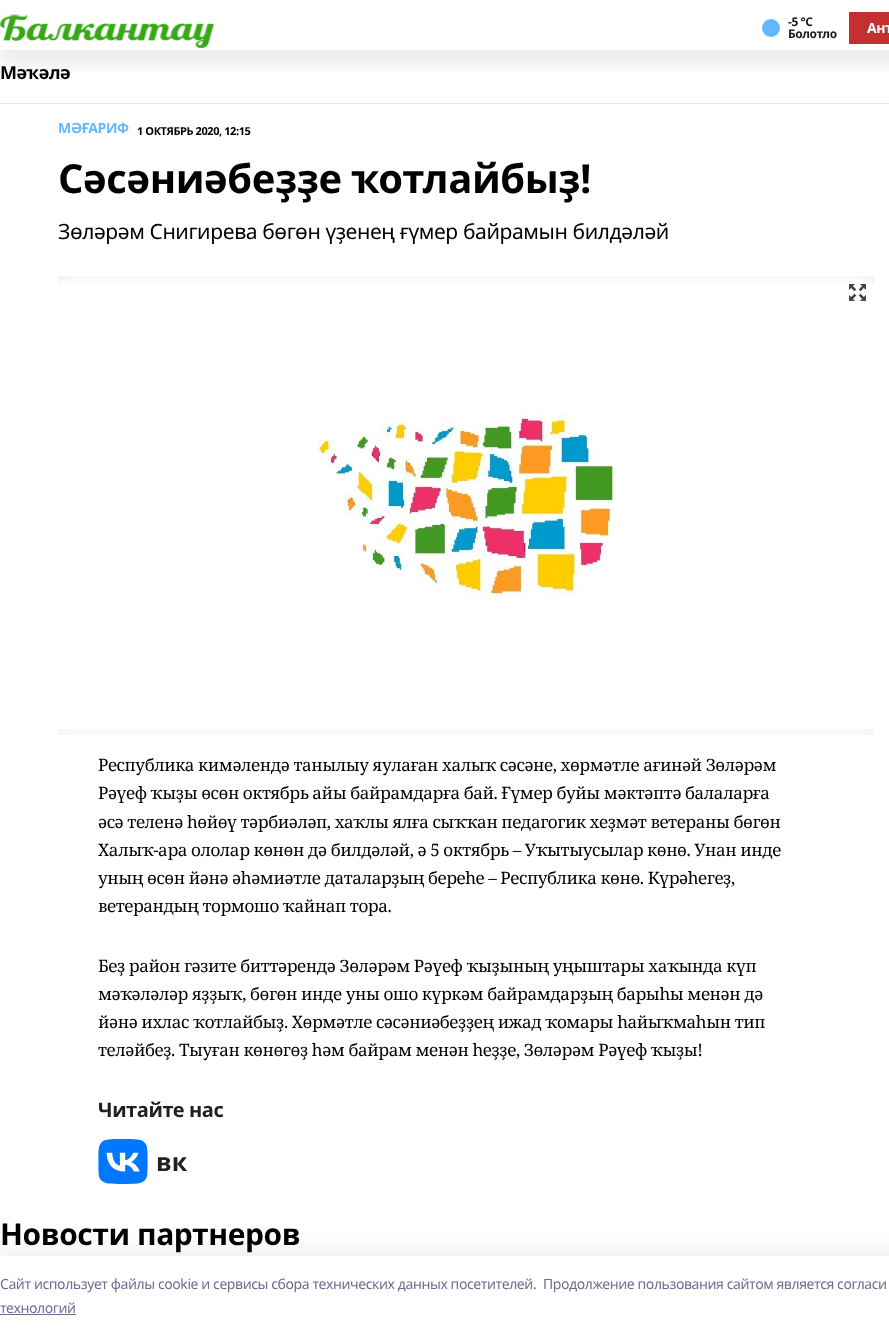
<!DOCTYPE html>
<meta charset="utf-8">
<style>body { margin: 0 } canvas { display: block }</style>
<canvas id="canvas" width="889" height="1336"></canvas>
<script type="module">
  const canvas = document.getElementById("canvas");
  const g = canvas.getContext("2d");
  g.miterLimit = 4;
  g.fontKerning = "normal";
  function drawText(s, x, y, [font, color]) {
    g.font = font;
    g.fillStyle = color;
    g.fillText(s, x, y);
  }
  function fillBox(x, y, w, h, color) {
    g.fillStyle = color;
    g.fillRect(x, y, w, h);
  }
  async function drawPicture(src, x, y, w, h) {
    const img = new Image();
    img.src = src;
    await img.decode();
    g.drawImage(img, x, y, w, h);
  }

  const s1 = ["bold 12px Noto Sans", "#1A1A1A"];
  const s2 = ["bold 14px Noto Sans", "#FFFFFF"];
  const s3 = ["bold 18px Noto Sans", "#000000"];
  const s4 = ["bold 14px Noto Sans", "#63B8FF"];
  const s5 = ["bold 11px Noto Sans", "#000000"];
  const s6 = ["bold 40px Noto Sans", "#000000"];
  const s7 = ["21px Noto Sans", "#000000"];
  const s8 = ["17px Noto Serif", "#000000"];
  const s9 = ["bold 20px Noto Sans", "#202022"];
  const s10 = ["bold 30px Noto Sans", "#000000"];
  const s11 = ["14px Noto Sans", "#6F6C90"];

  fillBox(0, 0, 889, 1336, "#FFFFFF");
  g.save();
  g.beginPath();
  g.rect(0, 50, 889, 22);
  g.clip();
  g.fillStyle = "rgba(0, 0, 0, 0.08)";
  g.filter = "blur(10px)";
  g.beginPath();
  g.rect(0, 15, 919, 50);
  g.fill();
  g.filter = "none";
  g.restore();
  await drawPicture("pic1.png", 0, 14, 214, 34);
  g.fillStyle = "#63B8FF";
  g.beginPath();
  g.arc(771, 28, 9, 0, Math.PI * 2);
  g.fill();
  g.letterSpacing = "-0.42px";
  drawText("-5 °С", 788, 26, s1);
  drawText("Болотло", 788, 38, s1);
  fillBox(849, 12, 40, 32, "#C23030");
  drawText("Ант", 867, 33, s2);
  fillBox(0, 103, 889, 1, "#EAEAEA");
  drawText("Мәҡәлә", 0, 79, s3);
  drawText("МӘҒАРИФ", 58, 133, s4);
  drawText("1 ОКТЯБРЬ 2020, 12:15", 137, 135, s5);
  drawText("Сәсәниәбеҙҙе ҡотлайбыҙ!", 58, 193, s6);
  drawText("Зөләрәм Снигирева бөгөн үҙенең ғүмер байрамын билдәләй", 58, 239, s7);
  fillBox(58, 276, 816, 459, "#EDF2F7");
  await drawPicture("pic2.png", 58, 276, 816, 459);
  await drawPicture("pic3.png", 58, 283, 816, 446);
  await drawPicture("pic4.png", 849, 284, 17, 17);
  drawText("Республика кимәлендә танылыу яулаған халыҡ сәсәне, хөрмәтле ағинәй Зөләрәм", 98, 771, s8);
  drawText("Рәүеф ҡыҙы өсөн октябрь айы байрамдарға бай. Ғүмер буйы мәктәптә балаларға", 98, 799, s8);
  drawText("әсә теленә һөйөү тәрбиәләп, хаҡлы ялға сыҡҡан педагогик хеҙмәт ветераны бөгөн", 98, 828, s8);
  drawText("Халыҡ-ара ололар көнөн дә билдәләй, ә 5 октябрь – Уҡытыусылар көнө. Унан инде", 98, 856, s8);
  drawText("уның өсөн йәнә әһәмиәтле даталарҙың береһе – Республика көнө. Күрәһегеҙ,", 98, 884, s8);
  drawText("ветерандың тормошо ҡайнап тора.", 98, 912, s8);
  drawText("Беҙ район гәзите биттәрендә Зөләрәм Рәүеф ҡыҙының уңыштары хаҡында күп", 98, 972, s8);
  drawText("мәҡәләләр яҙҙыҡ, бөгөн инде уны ошо күркәм байрамдарҙың барыһы менән дә", 98, 1000, s8);
  drawText("йәнә ихлас ҡотлайбыҙ. Хөрмәтле сәсәниәбеҙҙең ижад ҡомары һайыҡмаһын тип", 98, 1028, s8);
  drawText("теләйбеҙ. Тыуған көнөгөҙ һәм байрам менән һеҙҙе, Зөләрәм Рәүеф ҡыҙы!", 98, 1056, s8);
  drawText("Читайте нас", 98, 1117, s9);
  await drawPicture("pic5.png", 98, 1139, 89, 45);
  drawText("Новости партнеров", 0, 1245, s10);
  g.fillStyle = "rgba(20, 20, 43, 0.08)";
  g.filter = "blur(11.5px)";
  g.beginPath();
  g.rect(0, 1250, 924, 80);
  g.fill();
  g.filter = "none";
  fillBox(0, 1256, 889, 80, "#FFFFFF");
  drawText("Cайт использует файлы cookie и сервисы сбора технических данных посетителей.", 0, 1289, s11);
  drawText("Продолжение пользования сайтом является согласи", 543, 1289, s11);
  drawText("технологий", 0, 1313, s11);
  fillBox(0, 1314, 76, 1, "#6F6C90");
</script>
